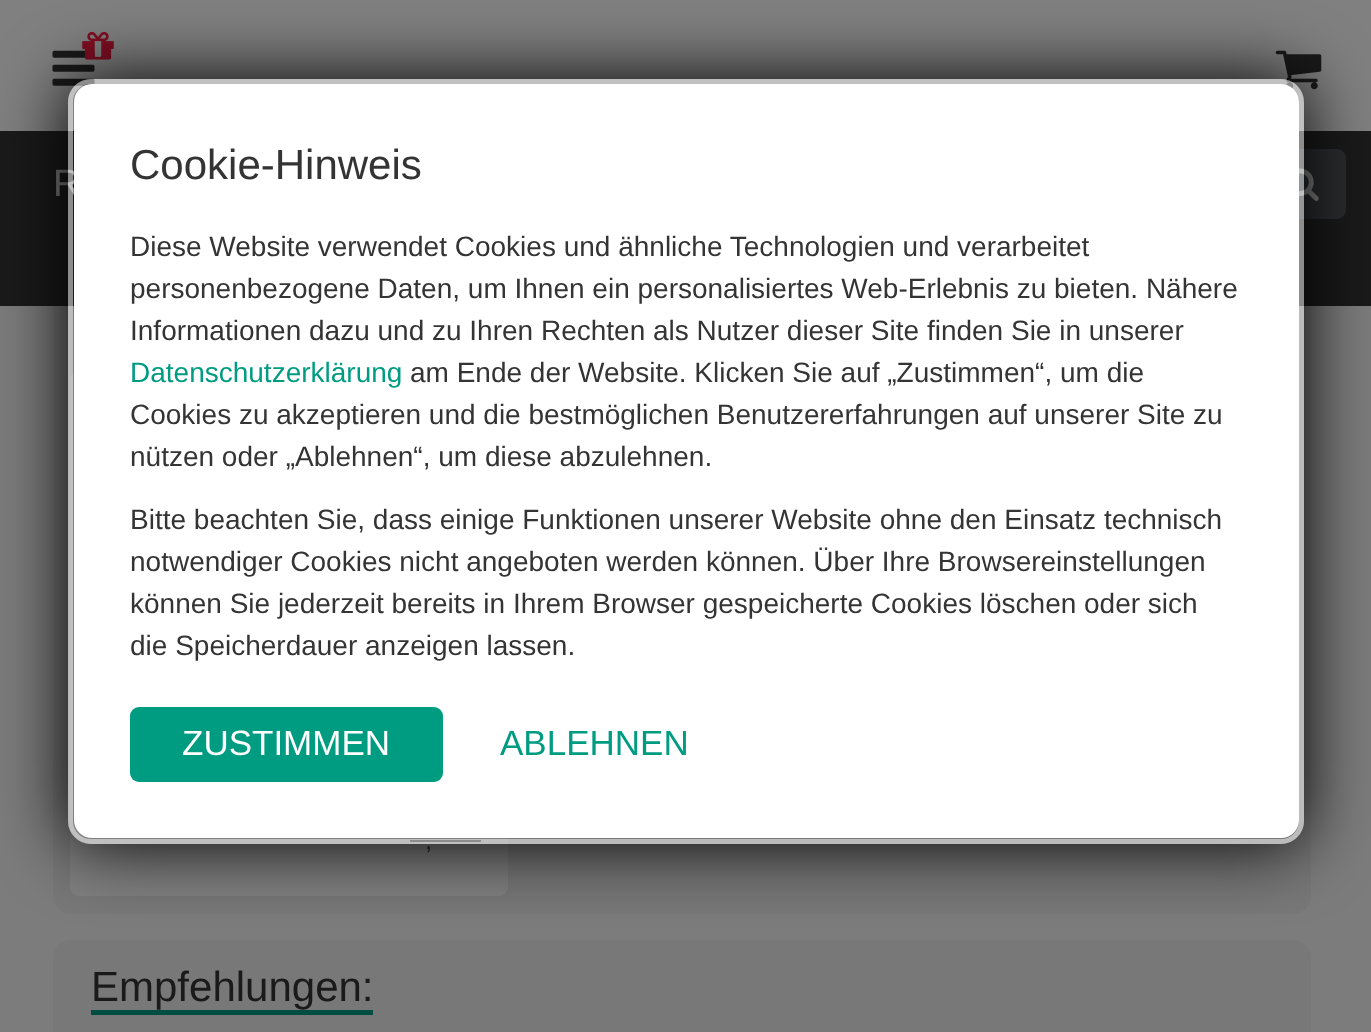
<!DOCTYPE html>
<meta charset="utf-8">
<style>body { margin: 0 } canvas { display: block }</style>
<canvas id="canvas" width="1371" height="1032"></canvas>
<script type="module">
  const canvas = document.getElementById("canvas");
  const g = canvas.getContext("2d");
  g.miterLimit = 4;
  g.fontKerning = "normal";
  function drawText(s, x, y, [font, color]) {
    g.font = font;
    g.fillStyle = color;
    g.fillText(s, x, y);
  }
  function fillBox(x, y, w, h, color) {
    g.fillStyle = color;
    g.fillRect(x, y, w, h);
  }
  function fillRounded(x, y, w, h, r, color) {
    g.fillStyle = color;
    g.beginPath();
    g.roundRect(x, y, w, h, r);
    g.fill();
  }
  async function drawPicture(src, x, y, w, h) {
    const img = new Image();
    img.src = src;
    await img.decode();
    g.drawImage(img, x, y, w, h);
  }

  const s1 = ["38px Liberation Sans", "#808080"];
  const s2 = ["42px Liberation Sans", "#343434"];
  const s3 = ["28px Liberation Sans", "#343434"];
  const s4 = ["28px Liberation Sans", "#009C82"];
  const s5 = ["35px Liberation Sans", "#FFFFFF"];
  const s6 = ["35px Liberation Sans", "#009C82"];
  const s7 = ["26px Liberation Sans", "#1A1A1A"];
  const s8 = ["42px Liberation Sans", "#1A1A1A"];

  fillBox(0, 0, 1371, 1032, "#7C7C7C");
  fillBox(0, 0, 1371, 131, "#808080");
  await drawPicture("pic2.png", 52, 50, 43, 36);
  await drawPicture("pic1.png", 82, 31, 32, 29);
  await drawPicture("pic3.png", 1275, 50, 47, 40);
  fillBox(0, 131, 1371, 175, "#1A1A1A");
  drawText("R", 53, 196, s1);
  g.fillStyle = "#2A2C2E";
  g.beginPath();
  g.roundRect(1258, 149, 88, 70, [0, 9, 9, 0]);
  g.fill();
  await drawPicture("pic4.png", 1299, 168, 20, 33);
  fillBox(53, 306, 1258, 48, "#787878");
  g.beginPath();
  g.roundRect(53, 354, 1258, 560, [0, 0, 18, 18]);
  g.fill();
  fillRounded(70, 371, 438, 525, 9, "#808080");
  fillBox(410, 840, 71, 2, "#1A1A1A");
  g.fillStyle = "#787878";
  g.beginPath();
  g.moveTo(71, 940);
  g.lineTo(1293, 940);
  g.bezierCurveTo(1303, 940, 1311, 948, 1311, 958);
  g.lineTo(1311, 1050);
  g.lineTo(53, 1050);
  g.lineTo(53, 958);
  g.bezierCurveTo(53, 948, 61, 940, 71, 940);
  g.closePath();
  g.fill();
  g.save();
  g.beginPath();
  g.moveTo(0, 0);
  g.lineTo(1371, 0);
  g.lineTo(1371, 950);
  g.lineTo(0, 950);
  g.closePath();
  g.moveTo(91, 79);
  g.lineTo(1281, 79);
  g.bezierCurveTo(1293.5, 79, 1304, 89.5, 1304, 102);
  g.lineTo(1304, 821);
  g.bezierCurveTo(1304, 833.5, 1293.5, 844, 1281, 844);
  g.lineTo(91, 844);
  g.bezierCurveTo(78.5, 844, 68, 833.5, 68, 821);
  g.lineTo(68, 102);
  g.bezierCurveTo(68, 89.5, 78.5, 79, 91, 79);
  g.closePath();
  g.clip("evenodd");
  g.fillStyle = "#000000";
  g.filter = "blur(35px)";
  g.beginPath();
  g.roundRect(68, 79, 1236, 765, 23);
  g.fill();
  g.filter = "none";
  g.restore();
  g.beginPath();
  g.roundRect(70.5, 81.5, 1231, 760, 20.5);
  g.strokeStyle = "rgba(255, 255, 255, 0.5)";
  g.lineWidth = 5;
  g.stroke();
  fillRounded(74, 84, 1225, 754, 18, "#FFFFFF");
  drawText("Cookie-Hinweis", 130, 179, s2);
  drawText("Diese Website verwendet Cookies und ähnliche Technologien und verarbeitet", 130, 256, s3);
  drawText("personenbezogene Daten, um Ihnen ein personalisiertes Web-Erlebnis zu bieten. Nähere", 130, 298, s3);
  drawText("Informationen dazu und zu Ihren Rechten als Nutzer dieser Site finden Sie in unserer", 130, 340, s3);
  drawText("Datenschutzerklärung", 130, 382, s4);
  drawText("am Ende der Website. Klicken Sie auf „Zustimmen“, um die", 410, 382, s3);
  drawText("Cookies zu akzeptieren und die bestmöglichen Benutzererfahrungen auf unserer Site zu", 130, 424, s3);
  drawText("nützen oder „Ablehnen“, um diese abzulehnen.", 130, 466, s3);
  drawText("Bitte beachten Sie, dass einige Funktionen unserer Website ohne den Einsatz technisch", 130, 529, s3);
  drawText("notwendiger Cookies nicht angeboten werden können. Über Ihre Browsereinstellungen", 130, 571, s3);
  drawText("können Sie jederzeit bereits in Ihrem Browser gespeicherte Cookies löschen oder sich", 130, 613, s3);
  drawText("die Speicherdauer anzeigen lassen.", 130, 655, s3);
  fillRounded(130, 707, 313, 75, 9, "#009C82");
  drawText("ZUSTIMMEN", 182, 755, s5);
  drawText("ABLEHNEN", 500, 755, s6);
  drawText(",", 425, 849, s7);
  drawText("Empfehlungen:", 91, 1001, s8);
  fillBox(91, 1010, 282, 5, "#004E41");
</script>
